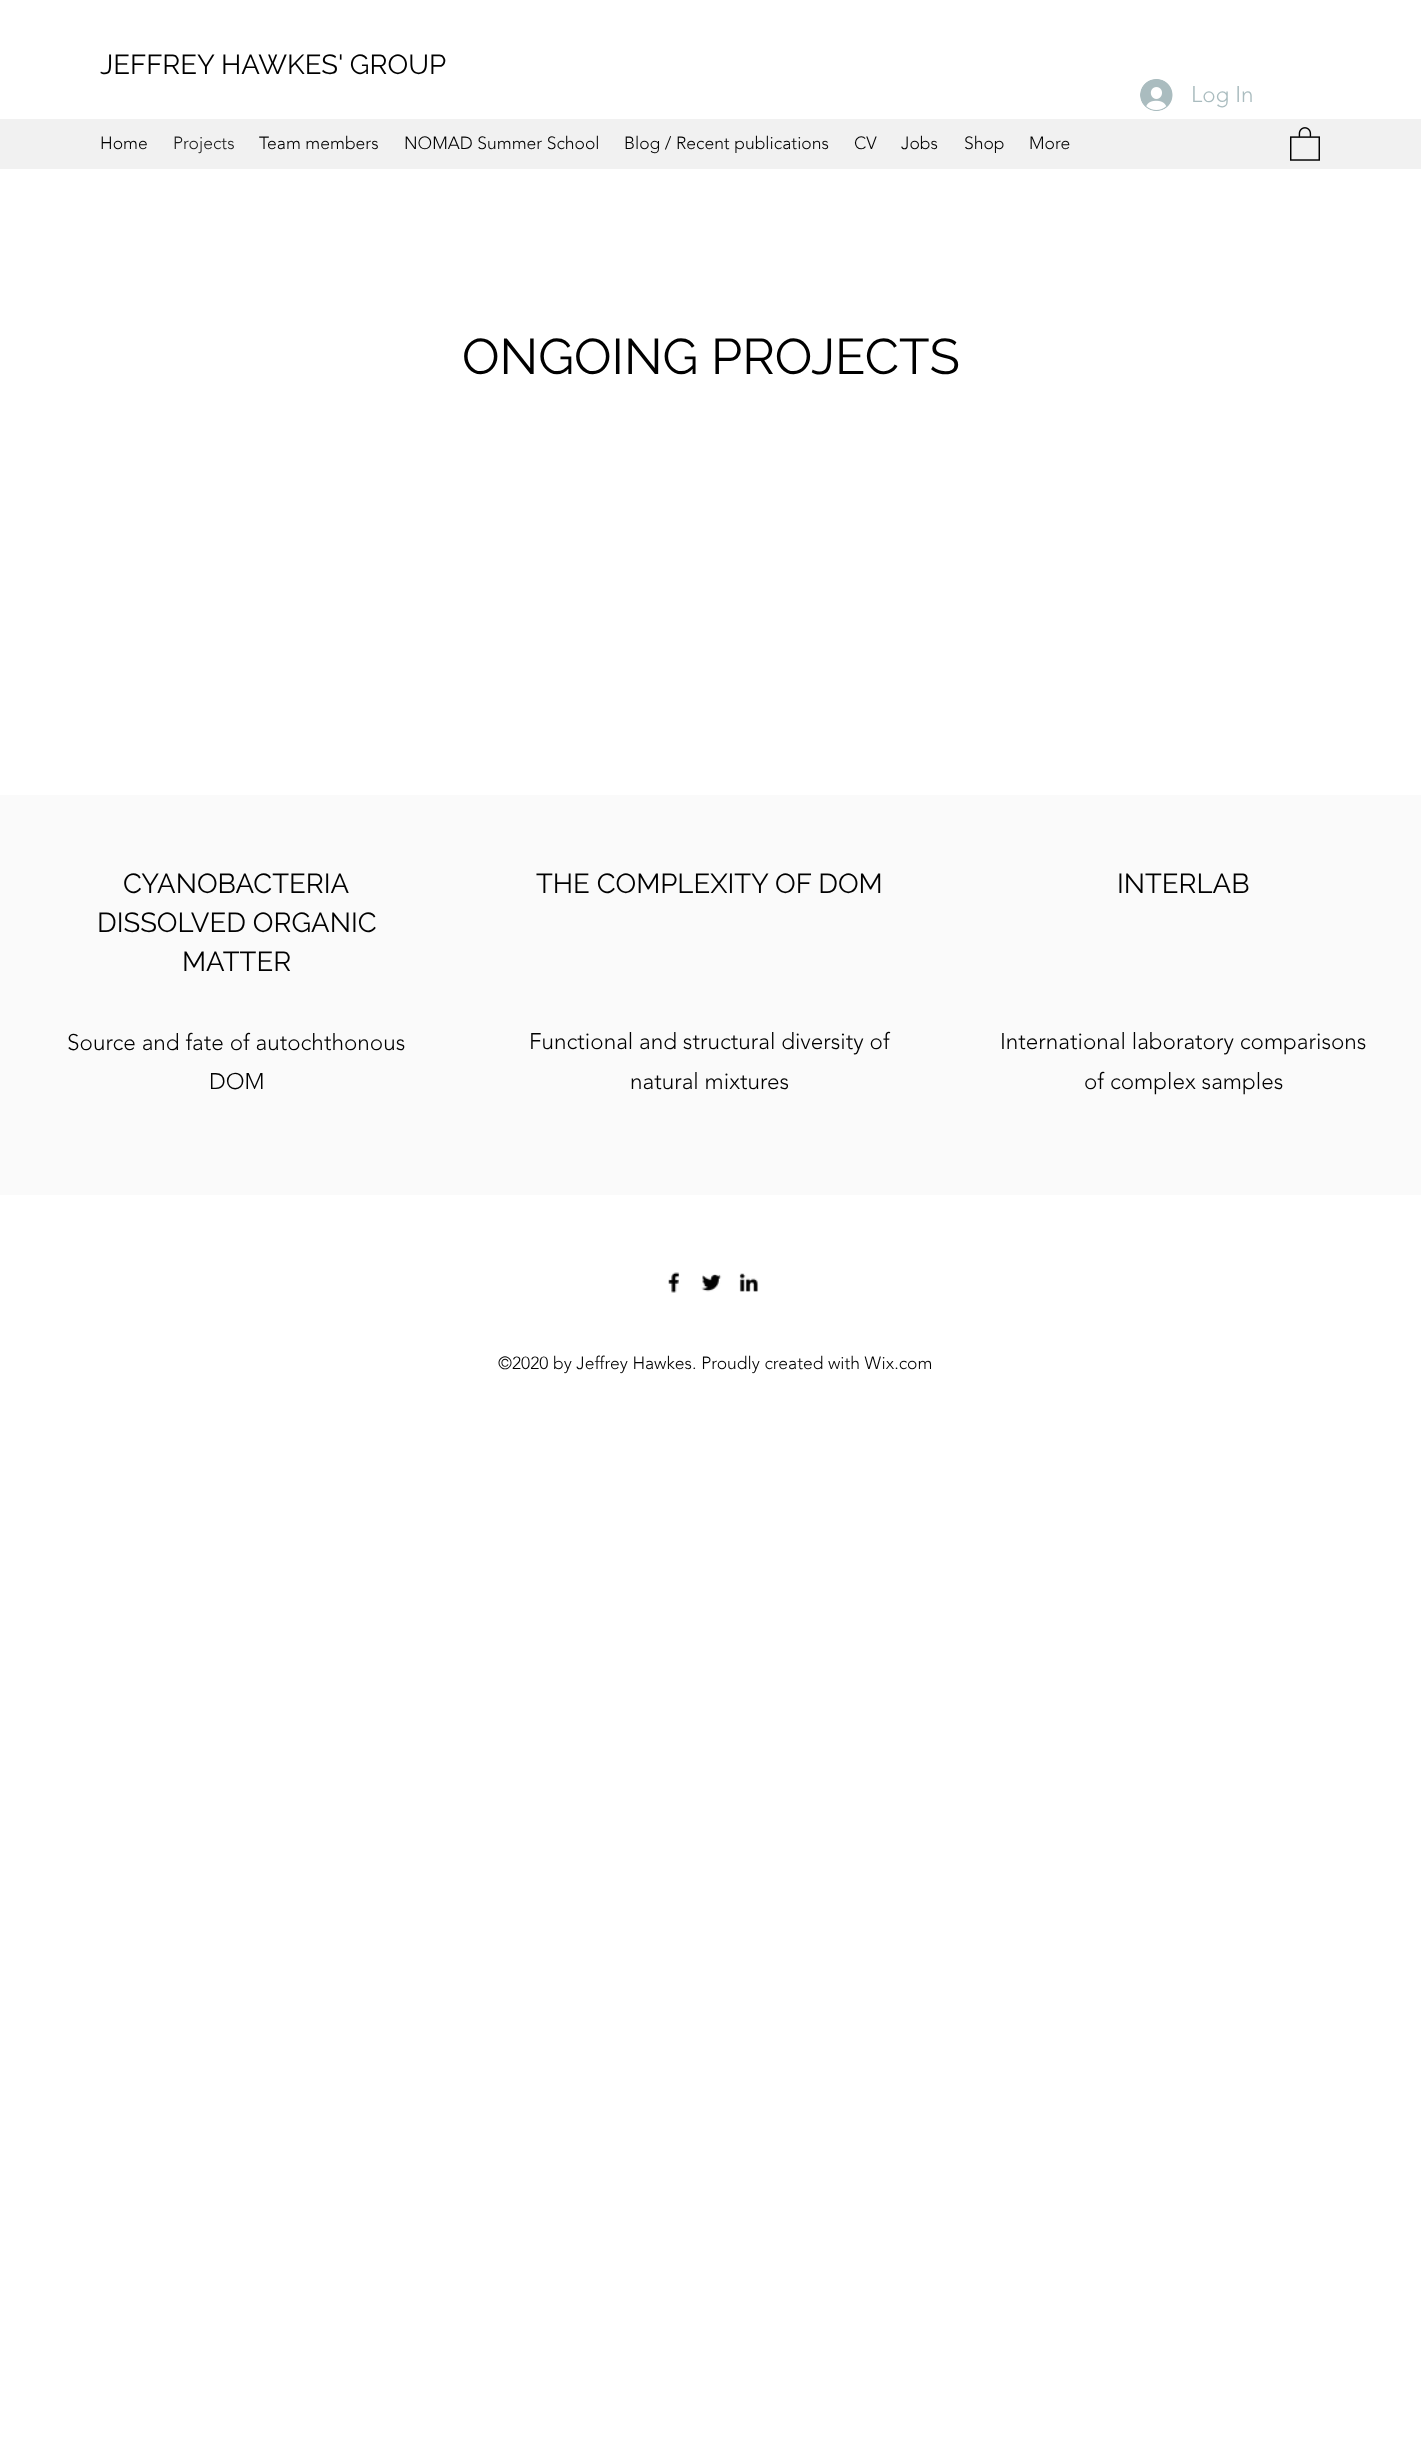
<!DOCTYPE html>
<meta charset="utf-8">
<style>body { margin: 0 } canvas { display: block }</style>
<canvas id="canvas" width="1421" height="2464"></canvas>
<script type="module">
  const canvas = document.getElementById("canvas");
  const g = canvas.getContext("2d");
  g.miterLimit = 4;
  g.fontKerning = "normal";
  function drawText(s, x, y, [font, color]) {
    g.font = font;
    g.fillStyle = color;
    g.fillText(s, x, y);
  }
  function fillBox(x, y, w, h, color) {
    g.fillStyle = color;
    g.fillRect(x, y, w, h);
  }
  async function drawPicture(src, x, y, w, h) {
    const img = new Image();
    img.src = src;
    await img.decode();
    g.drawImage(img, x, y, w, h);
  }

  const s1 = ["27.5px Raleway", "#000000"];
  const s2 = ["300 22.5px 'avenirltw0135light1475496'", "#AABCBF"];
  const s3 = ["300 17.5px 'avenirltw0135light1475496'", "#000000"];
  const s4 = ["300 17.5px 'avenirltw0135light1475496'", "#191919"];
  const s5 = ["50px Raleway", "#000000"];
  const s6 = ["300 22.5px 'avenirltw0135light1475496'", "#000000"];

  fillBox(0, 0, 1421, 2464, "#FFFFFF");
  drawText("JEFFREY HAWKES' GROUP", 100, 74, s1);
  await drawPicture("pic1.png", 1140, 79, 33, 32);
  drawText("Log In", 1191, 102, s2);
  fillBox(0, 119, 1421, 50, "#F1F1F1");
  drawText("Home", 100, 149, s3);
  drawText("Projects", 173, 149, s4);
  drawText("Team members", 259, 149, s3);
  drawText("NOMAD Summer School", 404, 149, s3);
  drawText("Blog / Recent publications", 624, 149, s3);
  drawText("CV", 854, 149, s3);
  drawText("Jobs", 901, 149, s3);
  drawText("Shop", 964, 149, s3);
  drawText("More", 1029, 149, s3);
  await drawPicture("pic2.png", 1290, 127, 30, 34);
  drawText("ONGOING PROJECTS", 462, 374, s5);
  fillBox(0, 795, 1421, 400, "#FAFAFA");
  drawText("CYANOBACTERIA", 123, 893, s1);
  drawText("DISSOLVED ORGANIC", 97, 932, s1);
  drawText("MATTER", 182, 971, s1);
  drawText("Source and fate of autochthonous", 67, 1050, s6);
  drawText("DOM", 209, 1089, s6);
  drawText("THE COMPLEXITY OF DOM", 536, 893, s1);
  drawText("Functional and structural diversity of", 529, 1049, s6);
  drawText("natural mixtures", 630, 1089, s6);
  drawText("INTERLAB", 1117, 893, s1);
  drawText("International laboratory comparisons", 1000, 1049, s6);
  drawText("of complex samples", 1084, 1089, s6);
  await drawPicture("pic3.png", 668, 1272, 12, 21);
  await drawPicture("pic4.png", 701, 1274, 21, 18);
  await drawPicture("pic5.png", 739, 1273, 20, 19);
  drawText("©2020 by Jeffrey Hawkes. Proudly created with Wix.com", 498, 1369, s3);
</script>
